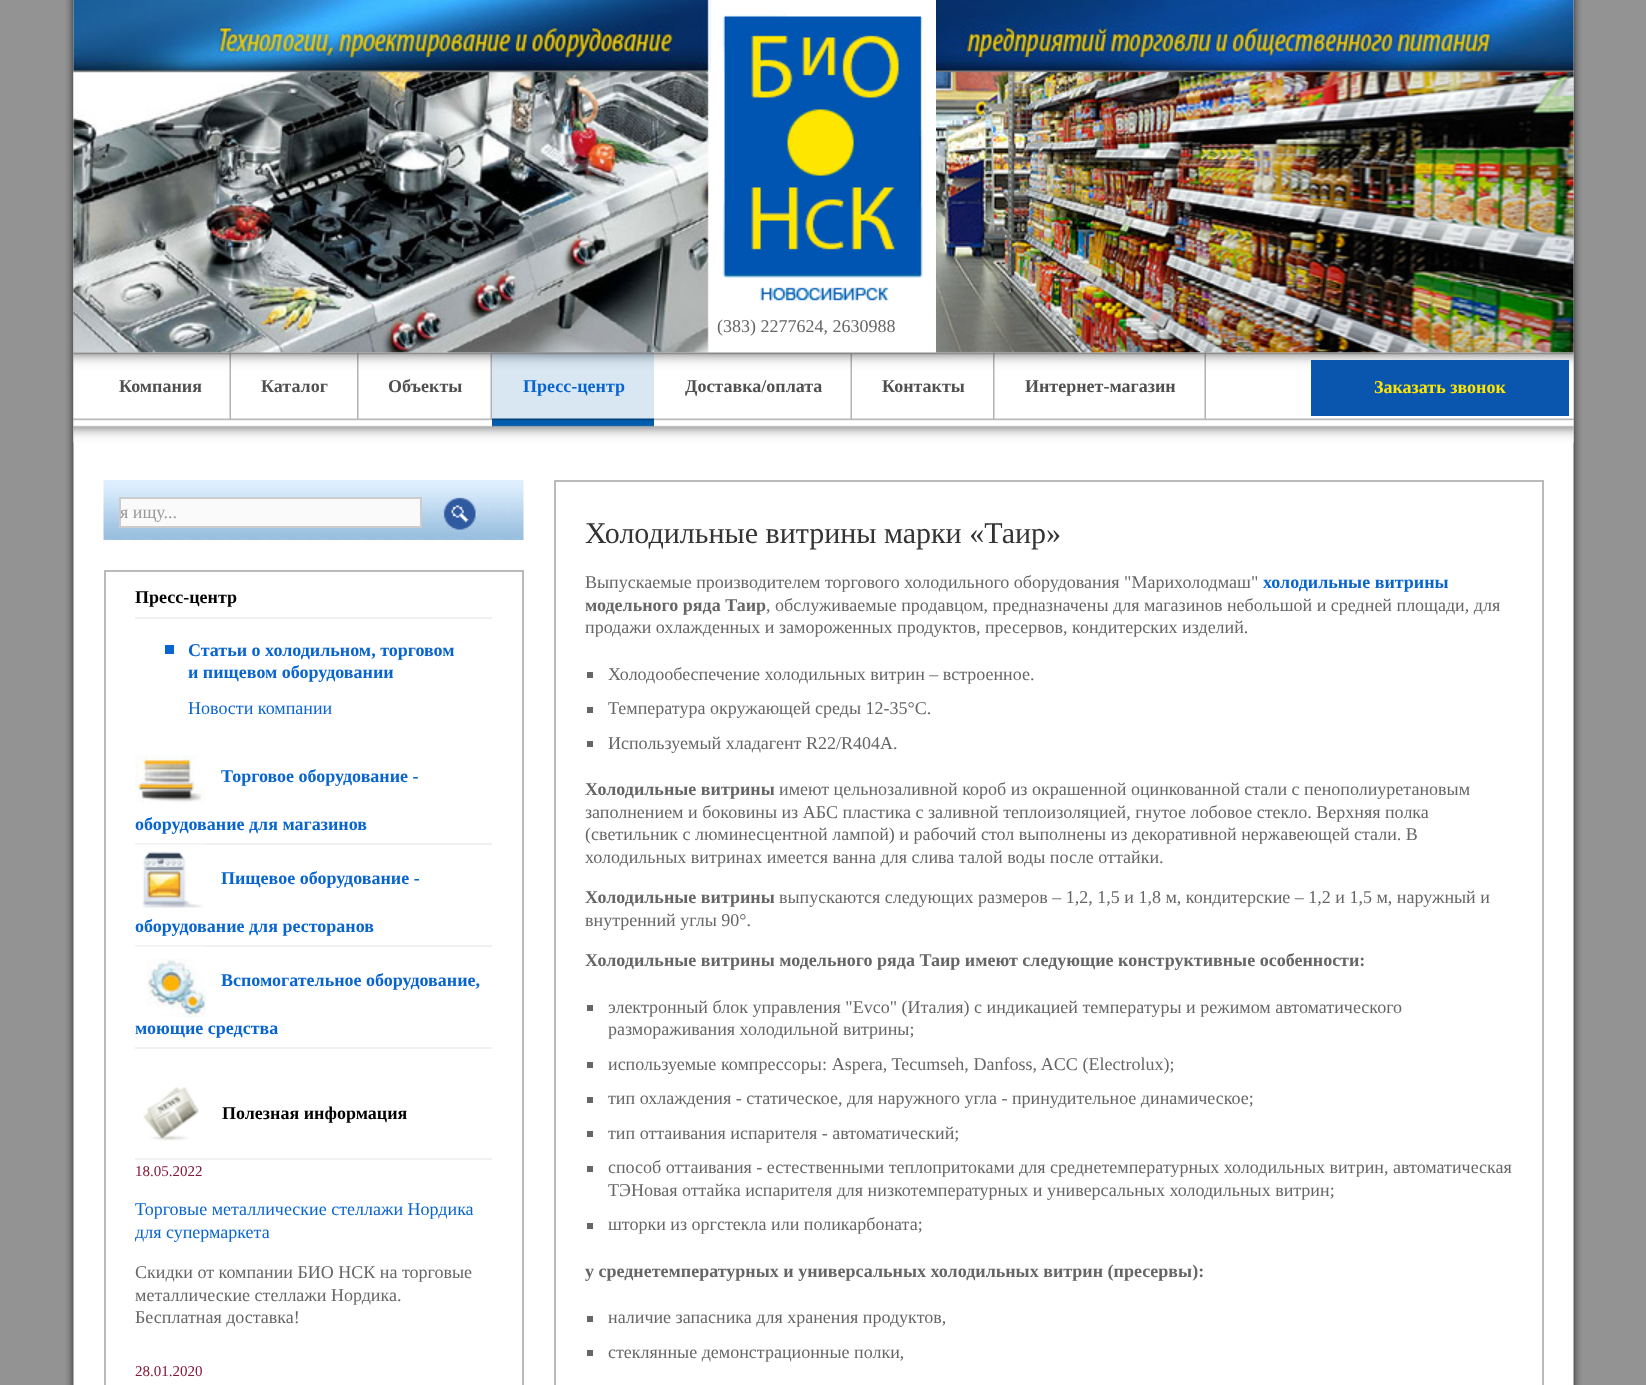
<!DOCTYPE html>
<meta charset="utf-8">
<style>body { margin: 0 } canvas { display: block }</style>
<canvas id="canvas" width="1646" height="1385"></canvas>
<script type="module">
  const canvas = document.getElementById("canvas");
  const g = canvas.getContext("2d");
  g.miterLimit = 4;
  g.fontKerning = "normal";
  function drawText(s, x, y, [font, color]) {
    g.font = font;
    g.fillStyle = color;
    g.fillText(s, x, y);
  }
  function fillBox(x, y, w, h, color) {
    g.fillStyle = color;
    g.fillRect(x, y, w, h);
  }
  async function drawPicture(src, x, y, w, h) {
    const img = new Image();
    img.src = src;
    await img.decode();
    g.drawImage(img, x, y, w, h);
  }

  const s1 = ["18px Liberation Serif", "#666666"];
  const s2 = ["bold 18px Liberation Serif", "#505050"];
  const s3 = ["bold 18px Liberation Serif", "#0864CF"];
  const s4 = ["bold 18px Liberation Serif", "#FFE503"];
  const s5 = ["18px Liberation Serif", "#999999"];
  const s6 = ["bold 18px Liberation Serif", "#000000"];
  const s7 = ["18px Liberation Serif", "#0864CF"];
  const s8 = ["15px Liberation Serif", "#841638"];
  const s9 = ["30px Liberation Serif", "#333333"];
  const s10 = ["bold 18px Liberation Serif", "#666666"];

  fillBox(0, 0, 1646, 1385, "#939393");
  await drawPicture("pic1.png", 65, 0, 1517, 1385);
  await drawPicture("pic2.png", 73, 0, 1501, 353);
  await drawPicture("pic4.png", 73, 352, 1501, 91);
  await drawPicture("pic3.png", 709, 0, 227, 354);
  drawText("(383) 2277624, 2630988", 717, 332, s1);
  await drawPicture("pic5.png", 229, 352, 2, 67);
  drawText("Компания", 119, 392, s2);
  await drawPicture("pic6.png", 357, 352, 2, 67);
  drawText("Каталог", 261, 392, s2);
  await drawPicture("pic7.png", 490, 352, 2, 67);
  drawText("Объекты", 388, 392, s2);
  await drawPicture("pic8.png", 492, 352, 162, 75);
  await drawPicture("pic9.png", 639, 352, 2, 1);
  drawText("Пресс-центр", 523, 392, s3);
  await drawPicture("pic10.png", 850, 354, 2, 65);
  drawText("Доставка/оплата", 685, 392, s2);
  await drawPicture("pic11.png", 993, 352, 2, 67);
  drawText("Контакты", 882, 392, s2);
  await drawPicture("pic12.png", 1204, 352, 2, 67);
  drawText("Интернет-магазин", 1025, 392, s2);
  fillBox(1311, 360, 258, 56, "#0A56AF");
  drawText("Заказать звонок", 1374, 393, s4);
  await drawPicture("pic13.png", 103, 480, 421, 60);
  g.fillStyle = "#FAFAFA";
  g.beginPath();
  g.rect(120, 498, 301, 29);
  g.fill();
  g.strokeStyle = "#CCCCCC";
  g.lineWidth = 2;
  g.stroke();
  drawText("я ищу...", 120, 518, s5);
  await drawPicture("pic14.png", 442, 497, 36, 33);
  g.strokeStyle = "#BABABA";
  g.strokeRect(105, 571, 418, 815);
  fillBox(135, 617, 357, 2, "#F1F1F1");
  drawText("Пресс-центр", 135, 603, s6);
  fillBox(165, 645, 9, 9, "#0864CF");
  drawText("Статьи о холодильном, торговом", 188, 656, s3);
  drawText("и пищевом оборудовании", 188, 678, s3);
  drawText("Новости компании", 188, 714, s7);
  fillBox(135, 843, 357, 2, "#F1F1F1");
  await drawPicture("pic15.png", 135, 754, 70, 49);
  drawText("Торговое оборудование -", 221, 782, s3);
  drawText("оборудование для магазинов", 135, 830, s3);
  fillBox(135, 945, 357, 2, "#F1F1F1");
  await drawPicture("pic16.png", 135, 844, 70, 64);
  drawText("Пищевое оборудование -", 221, 884, s3);
  drawText("оборудование для ресторанов", 135, 932, s3);
  fillBox(135, 1047, 357, 2, "#F1F1F1");
  await drawPicture("pic17.png", 135, 946, 71, 71);
  drawText("Вспомогательное оборудование,", 221, 986, s3);
  drawText("моющие средства", 135, 1034, s3);
  fillBox(135, 1158, 357, 2, "#F1F1F1");
  await drawPicture("pic18.png", 143, 1087, 56, 54);
  drawText("Полезная информация", 222, 1119, s6);
  drawText("18.05.2022", 135, 1176, s8);
  drawText("Торговые металлические стеллажи Нордика", 135, 1215, s7);
  drawText("для супермаркета", 135, 1238, s7);
  drawText("Скидки от компании БИО НСК на торговые", 135, 1278, s1);
  drawText("металлические стеллажи Нордика.", 135, 1301, s1);
  drawText("Бесплатная доставка!", 135, 1323, s1);
  drawText("28.01.2020", 135, 1376, s8);
  g.strokeRect(555, 481, 988, 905);
  drawText("Холодильные витрины марки «Таир»", 585, 543, s9);
  drawText("Выпускаемые производителем торгового холодильного оборудования \"Марихолодмаш\"", 585, 588, s1);
  drawText("холодильные витрины", 1263, 588, s3);
  drawText("модельного ряда Таир", 585, 611, s10);
  drawText(", обслуживаемые продавцом, предназначены для магазинов небольшой и средней площади, для", 766, 611, s1);
  drawText("продажи охлажденных и замороженных продуктов, пресервов, кондитерских изделий.", 585, 633, s1);
  fillBox(587, 672, 6, 6, "#666666");
  drawText("Холодообеспечение холодильных витрин – встроенное.", 608, 680, s1);
  fillBox(587, 707, 6, 6, "#666666");
  drawText("Температура окружающей среды 12-35°С.", 608, 714, s1);
  fillBox(587, 741, 6, 6, "#666666");
  drawText("Используемый хладагент R22/R404A.", 608, 749, s1);
  drawText("Холодильные витрины", 585, 795, s10);
  drawText("имеют цельнозаливной короб из окрашенной оцинкованной стали с пенополиуретановым", 779, 795, s1);
  drawText("заполнением и боковины из АБС пластика с заливной теплоизоляцией, гнутое лобовое стекло. Верхняя полка", 585, 818, s1);
  drawText("(светильник с люминесцентной лампой) и рабочий стол выполнены из декоративной нержавеющей стали. В", 585, 840, s1);
  drawText("холодильных витринах имеется ванна для слива талой воды после оттайки.", 585, 863, s1);
  drawText("Холодильные витрины", 585, 903, s10);
  drawText("выпускаются следующих размеров – 1,2, 1,5 и 1,8 м, кондитерские – 1,2 и 1,5 м, наружный и", 779, 903, s1);
  drawText("внутренний углы 90°.", 585, 926, s1);
  drawText("Холодильные витрины модельного ряда Таир имеют следующие конструктивные особенности:", 585, 966, s10);
  fillBox(587, 1005, 6, 6, "#666666");
  drawText("электронный блок управления \"Evco\" (Италия) с индикацией температуры и режимом автоматического", 608, 1013, s1);
  drawText("размораживания холодильной витрины;", 608, 1035, s1);
  fillBox(587, 1062, 6, 6, "#666666");
  g.wordSpacing = "0.25px";
  drawText("используемые компрессоры: Aspera, Tecumseh, Danfoss, ACC (Electrolux);", 608, 1070, s1);
  fillBox(587, 1097, 6, 6, "#666666");
  g.wordSpacing = "0px";
  drawText("тип охлаждения - статическое, для наружного угла - принудительное динамическое;", 608, 1104, s1);
  fillBox(587, 1131, 6, 6, "#666666");
  drawText("тип оттаивания испарителя - автоматический;", 608, 1139, s1);
  fillBox(587, 1166, 6, 6, "#666666");
  drawText("способ оттаивания - естественными теплопритоками для среднетемпературных холодильных витрин, автоматическая", 608, 1173, s1);
  drawText("ТЭНовая оттайка испарителя для низкотемпературных и универсальных холодильных витрин;", 608, 1196, s1);
  fillBox(587, 1223, 6, 6, "#666666");
  drawText("шторки из оргстекла или поликарбоната;", 608, 1230, s1);
  drawText("у среднетемпературных и универсальных холодильных витрин (пресервы):", 585, 1277, s10);
  fillBox(587, 1316, 6, 6, "#666666");
  drawText("наличие запасника для хранения продуктов,", 608, 1323, s1);
  fillBox(587, 1350, 6, 6, "#666666");
  drawText("стеклянные демонстрационные полки,", 608, 1358, s1);
</script>
